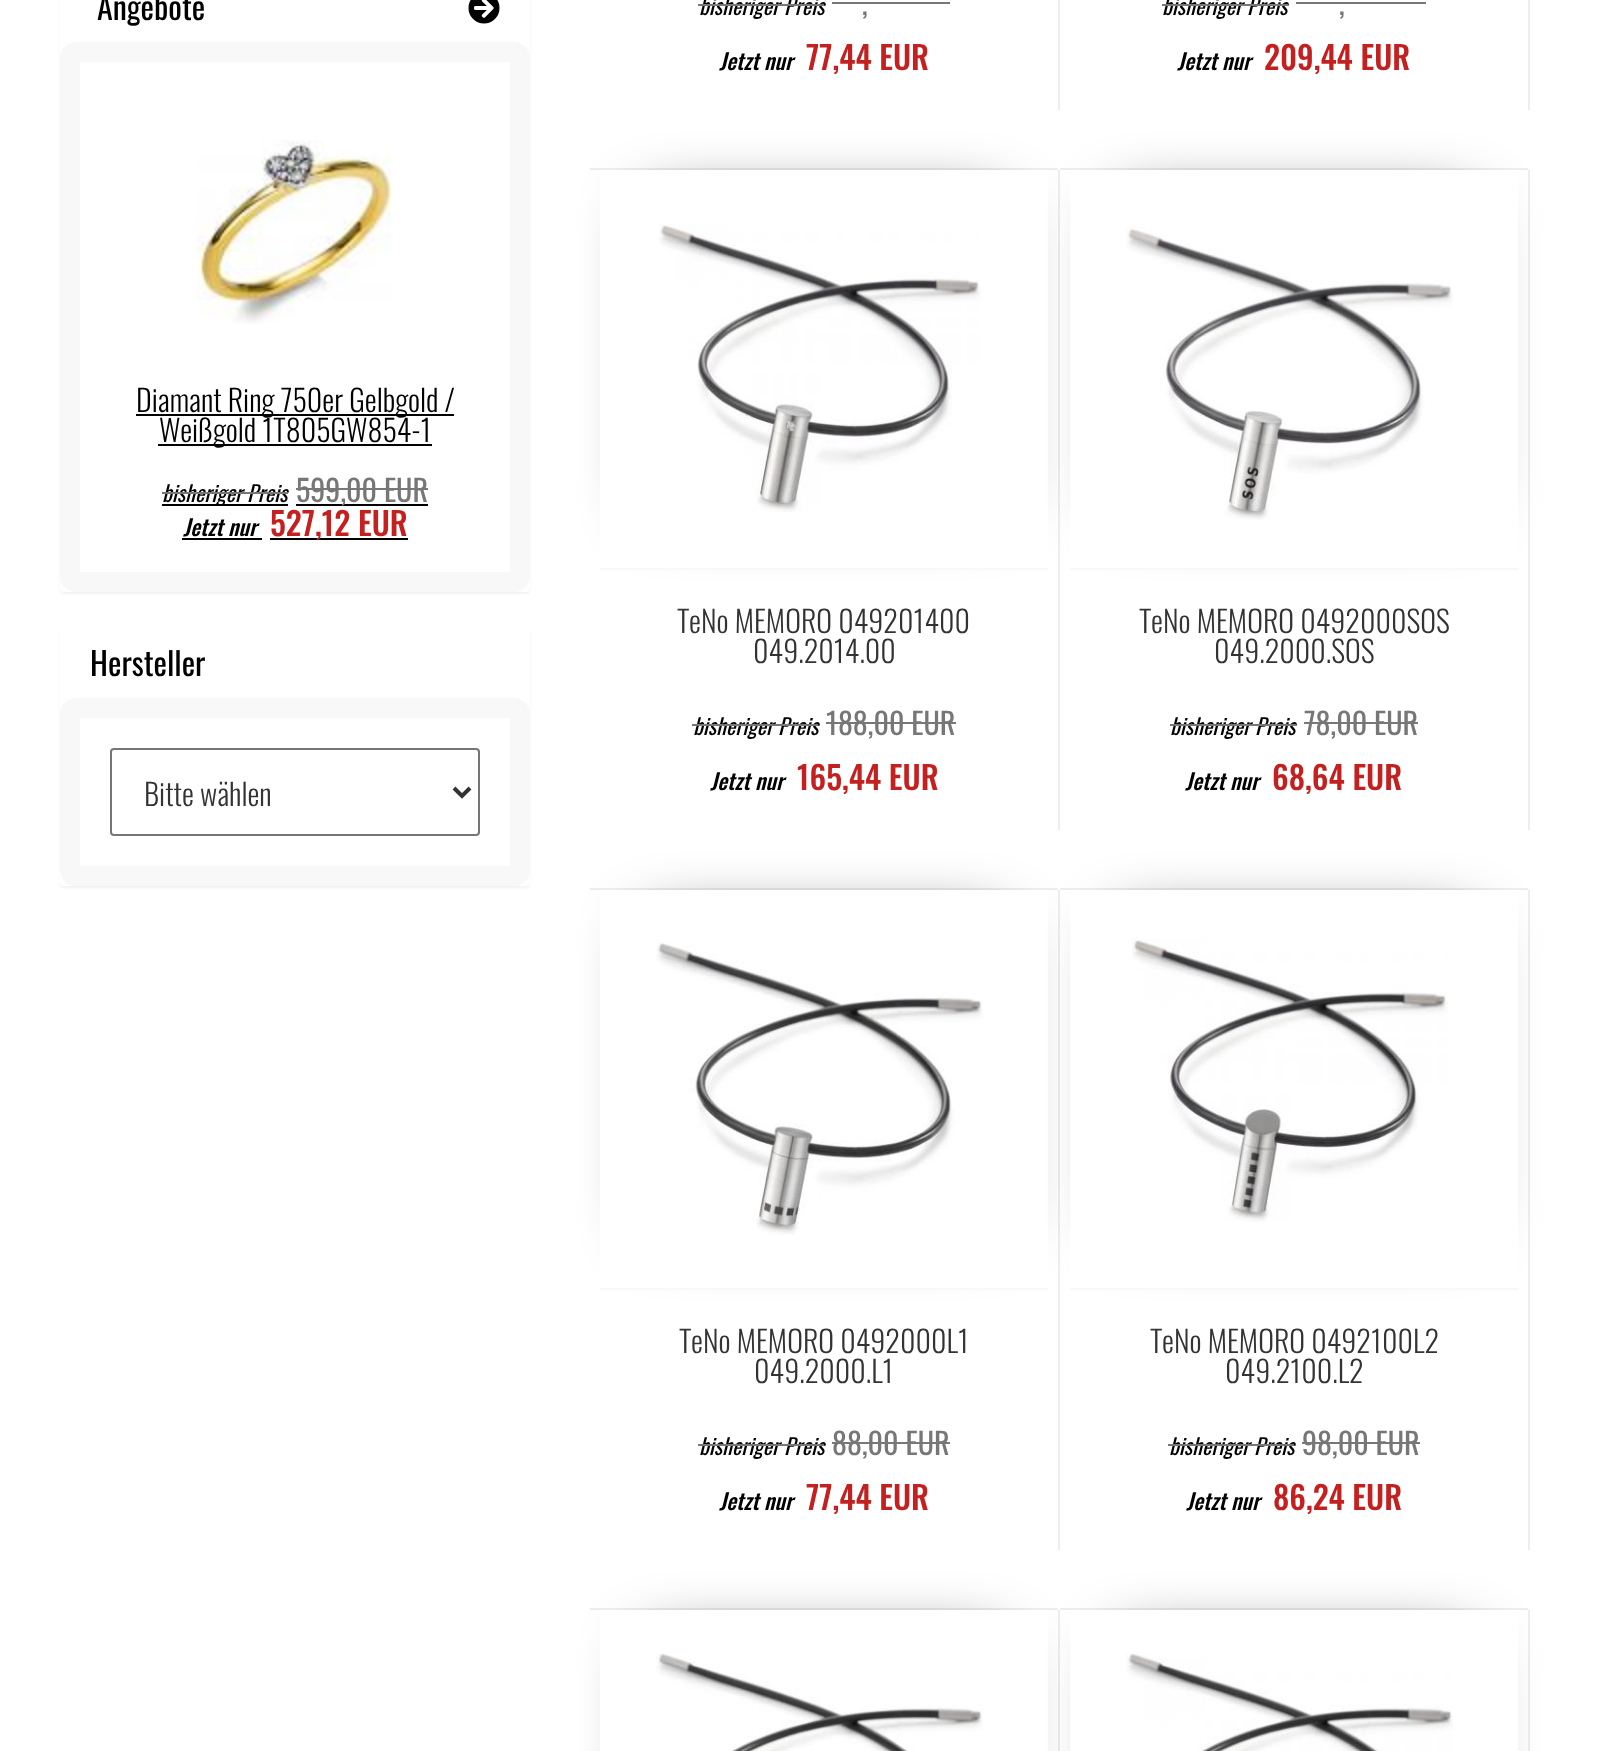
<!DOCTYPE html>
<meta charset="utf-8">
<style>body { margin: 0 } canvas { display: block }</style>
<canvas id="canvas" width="1619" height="1751"></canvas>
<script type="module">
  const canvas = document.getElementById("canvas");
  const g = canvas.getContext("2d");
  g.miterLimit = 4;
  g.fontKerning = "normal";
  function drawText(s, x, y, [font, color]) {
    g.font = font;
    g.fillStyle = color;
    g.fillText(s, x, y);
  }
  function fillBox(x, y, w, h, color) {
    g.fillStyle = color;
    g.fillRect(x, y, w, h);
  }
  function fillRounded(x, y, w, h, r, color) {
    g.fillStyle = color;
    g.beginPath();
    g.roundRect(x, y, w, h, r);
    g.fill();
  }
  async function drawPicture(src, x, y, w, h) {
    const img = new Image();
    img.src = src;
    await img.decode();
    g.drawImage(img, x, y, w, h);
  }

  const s1 = ["32px Oswald", "#000000"];
  const s2 = ["300 30px Oswald", "#000000"];
  const s3 = ["italic 22px Oswald", "#000000"];
  const s4 = ["30px Oswald", "#777777"];
  const s5 = ["italic 500 22px Oswald", "#000000"];
  const s6 = ["500 32px Oswald", "#C42020"];
  const s7 = ["300 30px Oswald", "#333333"];

  fillBox(0, 0, 1619, 1751, "#FFFFFF");
  g.fillStyle = "rgba(0, 0, 0, 0.05)";
  g.filter = "blur(1px)";
  g.beginPath();
  g.roundRect(60, -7, 470, 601, 4);
  g.fill();
  g.filter = "none";
  fillRounded(60, -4, 470, 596, 4, "#FFFFFF");
  drawText("Angebote", 97, 20, s1);
  await drawPicture("pic1.png", 468, 0, 32, 24);
  g.beginPath();
  g.roundRect(70, 52, 450, 530, 6);
  g.strokeStyle = "#F8F8F8";
  g.lineWidth = 20;
  g.stroke();
  await drawPicture("pic2.png", 196, 140, 197, 184);
  fillBox(136, 414, 318, 2, "#000000");
  drawText("Diamant Ring 750er Gelbgold /", 136, 412, s2);
  fillBox(158, 444, 274, 2, "#000000");
  drawText("Weißgold 1T805GW854-1", 159, 442, s2);
  fillBox(162, 504, 126, 2, "#000000");
  drawText("bisheriger Preis", 162, 502, s3);
  fillBox(162, 492, 126, 2, "#777777");
  fillBox(296, 504, 132, 2, "#000000");
  drawText("599,00 EUR", 296, 502, s4);
  fillBox(296, 488, 132, 2, "#777777");
  drawText("Jetzt nur", 183, 536, s5);
  fillBox(182, 538, 80, 2, "#000000");
  fillBox(270, 538, 138, 2, "#000000");
  drawText("527,12 EUR", 270, 536, s6);
  g.fillStyle = "rgba(0, 0, 0, 0.05)";
  g.filter = "blur(1px)";
  g.beginPath();
  g.roundRect(60, 630, 470, 258, 4);
  g.fill();
  g.filter = "none";
  fillRounded(60, 628, 470, 258, 4, "#FFFFFF");
  drawText("Hersteller", 90, 676, s1);
  g.beginPath();
  g.roundRect(70, 708, 450, 168, 6);
  g.stroke();
  g.beginPath();
  g.roundRect(111, 749, 368, 86, 3);
  g.strokeStyle = "#767676";
  g.lineWidth = 2;
  g.stroke();
  g.beginPath();
  g.moveTo(454, 788);
  g.lineTo(462, 796);
  g.lineTo(470, 788);
  g.strokeStyle = "#333333";
  g.lineWidth = 4;
  g.stroke();
  drawText("Bitte wählen", 144, 806, s7);
  fillBox(1058, 0, 2, 110, "#EEEEEE");
  fillBox(590, 168, 468, 2, "#EEEEEE");
  drawText("bisheriger Preis", 699, 15, s3);
  fillBox(698, 4, 126, 2, "#777777");
  drawText(",", 862, 15, s4);
  fillBox(832, 2, 118, 2, "#777777");
  drawText("Jetzt nur", 719, 70, s5);
  drawText("77,44 EUR", 806, 70, s6);
  fillBox(1528, 0, 2, 110, "#EEEEEE");
  fillBox(1060, 168, 468, 2, "#EEEEEE");
  drawText("bisheriger Preis", 1162, 15, s3);
  fillBox(1162, 4, 126, 2, "#777777");
  drawText(",", 1339, 15, s4);
  fillBox(1296, 2, 130, 2, "#777777");
  drawText("Jetzt nur", 1177, 70, s5);
  drawText("209,44 EUR", 1264, 70, s6);
  fillBox(1058, 170, 2, 660, "#EEEEEE");
  fillBox(590, 888, 468, 2, "#EEEEEE");
  g.save();
  g.beginPath();
  g.moveTo(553, 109);
  g.lineTo(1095, 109);
  g.lineTo(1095, 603);
  g.lineTo(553, 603);
  g.closePath();
  g.moveTo(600, 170);
  g.lineTo(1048, 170);
  g.lineTo(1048, 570);
  g.lineTo(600, 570);
  g.closePath();
  g.clip("evenodd");
  g.fillStyle = "rgba(0, 0, 0, 0.75)";
  g.filter = "blur(32px)";
  g.beginPath();
  g.rect(650, 206, 348, 300);
  g.fill();
  g.filter = "none";
  g.restore();
  fillBox(600, 568, 448, 2, "#F8F8F8");
  await drawPicture("pic3.png", 659, 224, 322, 288);
  drawText("TeNo MEMORO 049201400", 677, 633, s7);
  drawText("049.2014.00", 753, 663, s7);
  drawText("bisheriger Preis", 693, 735, s3);
  fillBox(692, 724, 126, 2, "#777777");
  drawText("188,00 EUR", 826, 735, s4);
  fillBox(826, 722, 130, 2, "#777777");
  drawText("Jetzt nur", 710, 790, s5);
  drawText("165,44 EUR", 797, 790, s6);
  fillBox(1060, 208, 9, 296, "#FFFFFF");
  fillBox(1528, 170, 2, 660, "#EEEEEE");
  fillBox(1060, 888, 468, 2, "#EEEEEE");
  g.save();
  g.beginPath();
  g.moveTo(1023, 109);
  g.lineTo(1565, 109);
  g.lineTo(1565, 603);
  g.lineTo(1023, 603);
  g.closePath();
  g.moveTo(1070, 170);
  g.lineTo(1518, 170);
  g.lineTo(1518, 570);
  g.lineTo(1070, 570);
  g.closePath();
  g.clip("evenodd");
  g.fillStyle = "rgba(0, 0, 0, 0.75)";
  g.filter = "blur(32px)";
  g.beginPath();
  g.rect(1120, 206, 348, 300);
  g.fill();
  g.filter = "none";
  g.restore();
  fillBox(1070, 568, 448, 2, "#F8F8F8");
  await drawPicture("pic4.png", 1126, 226, 327, 294);
  drawText("TeNo MEMORO 0492000SOS", 1139, 633, s7);
  drawText("049.2000.SOS", 1214, 663, s7);
  drawText("bisheriger Preis", 1170, 735, s3);
  fillBox(1170, 724, 126, 2, "#777777");
  drawText("78,00 EUR", 1304, 735, s4);
  fillBox(1304, 722, 114, 2, "#777777");
  drawText("Jetzt nur", 1185, 790, s5);
  drawText("68,64 EUR", 1272, 790, s6);
  fillBox(1058, 890, 2, 660, "#EEEEEE");
  fillBox(590, 1608, 468, 2, "#EEEEEE");
  g.save();
  g.beginPath();
  g.moveTo(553, 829);
  g.lineTo(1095, 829);
  g.lineTo(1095, 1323);
  g.lineTo(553, 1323);
  g.closePath();
  g.moveTo(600, 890);
  g.lineTo(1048, 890);
  g.lineTo(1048, 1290);
  g.lineTo(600, 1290);
  g.closePath();
  g.clip("evenodd");
  g.fillStyle = "rgba(0, 0, 0, 0.75)";
  g.filter = "blur(32px)";
  g.beginPath();
  g.rect(650, 926, 348, 300);
  g.fill();
  g.filter = "none";
  g.restore();
  fillBox(600, 1288, 448, 2, "#F8F8F8");
  await drawPicture("pic5.png", 656, 942, 327, 293);
  drawText("TeNo MEMORO 0492000L1", 679, 1353, s7);
  drawText("049.2000.L1", 754, 1383, s7);
  drawText("bisheriger Preis", 699, 1455, s3);
  fillBox(698, 1444, 126, 2, "#777777");
  drawText("88,00 EUR", 832, 1455, s4);
  fillBox(832, 1442, 118, 2, "#777777");
  drawText("Jetzt nur", 719, 1510, s5);
  drawText("77,44 EUR", 806, 1510, s6);
  fillBox(1060, 928, 9, 296, "#FFFFFF");
  fillBox(1528, 890, 2, 660, "#EEEEEE");
  fillBox(1060, 1608, 468, 2, "#EEEEEE");
  g.save();
  g.beginPath();
  g.moveTo(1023, 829);
  g.lineTo(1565, 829);
  g.lineTo(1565, 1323);
  g.lineTo(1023, 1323);
  g.closePath();
  g.moveTo(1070, 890);
  g.lineTo(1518, 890);
  g.lineTo(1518, 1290);
  g.lineTo(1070, 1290);
  g.closePath();
  g.clip("evenodd");
  g.fillStyle = "rgba(0, 0, 0, 0.75)";
  g.filter = "blur(32px)";
  g.beginPath();
  g.rect(1120, 926, 348, 300);
  g.fill();
  g.filter = "none";
  g.restore();
  fillBox(1070, 1288, 448, 2, "#F8F8F8");
  await drawPicture("pic6.png", 1132, 938, 316, 284);
  drawText("TeNo MEMORO 0492100L2", 1150, 1353, s7);
  drawText("049.2100.L2", 1225, 1383, s7);
  drawText("bisheriger Preis", 1169, 1455, s3);
  fillBox(1168, 1444, 126, 2, "#777777");
  drawText("98,00 EUR", 1302, 1455, s4);
  fillBox(1302, 1442, 118, 2, "#777777");
  drawText("Jetzt nur", 1186, 1510, s5);
  drawText("86,24 EUR", 1273, 1510, s6);
  fillBox(1058, 1610, 2, 141, "#EEEEEE");
  g.save();
  g.beginPath();
  g.moveTo(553, 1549);
  g.lineTo(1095, 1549);
  g.lineTo(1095, 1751);
  g.lineTo(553, 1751);
  g.closePath();
  g.moveTo(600, 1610);
  g.lineTo(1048, 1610);
  g.lineTo(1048, 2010);
  g.lineTo(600, 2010);
  g.closePath();
  g.clip("evenodd");
  g.fillStyle = "rgba(0, 0, 0, 0.75)";
  g.filter = "blur(32px)";
  g.beginPath();
  g.rect(650, 1646, 348, 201);
  g.fill();
  g.filter = "none";
  g.restore();
  await drawPicture("pic7.png", 656, 1653, 327, 98);
  fillBox(1060, 1648, 9, 103, "#FFFFFF");
  fillBox(1528, 1610, 2, 141, "#EEEEEE");
  g.save();
  g.beginPath();
  g.moveTo(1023, 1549);
  g.lineTo(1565, 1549);
  g.lineTo(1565, 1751);
  g.lineTo(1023, 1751);
  g.closePath();
  g.moveTo(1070, 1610);
  g.lineTo(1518, 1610);
  g.lineTo(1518, 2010);
  g.lineTo(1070, 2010);
  g.closePath();
  g.clip("evenodd");
  g.fillStyle = "rgba(0, 0, 0, 0.75)";
  g.filter = "blur(32px)";
  g.beginPath();
  g.rect(1120, 1646, 348, 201);
  g.fill();
  g.filter = "none";
  g.restore();
  await drawPicture("pic8.png", 1126, 1653, 327, 98);
</script>
